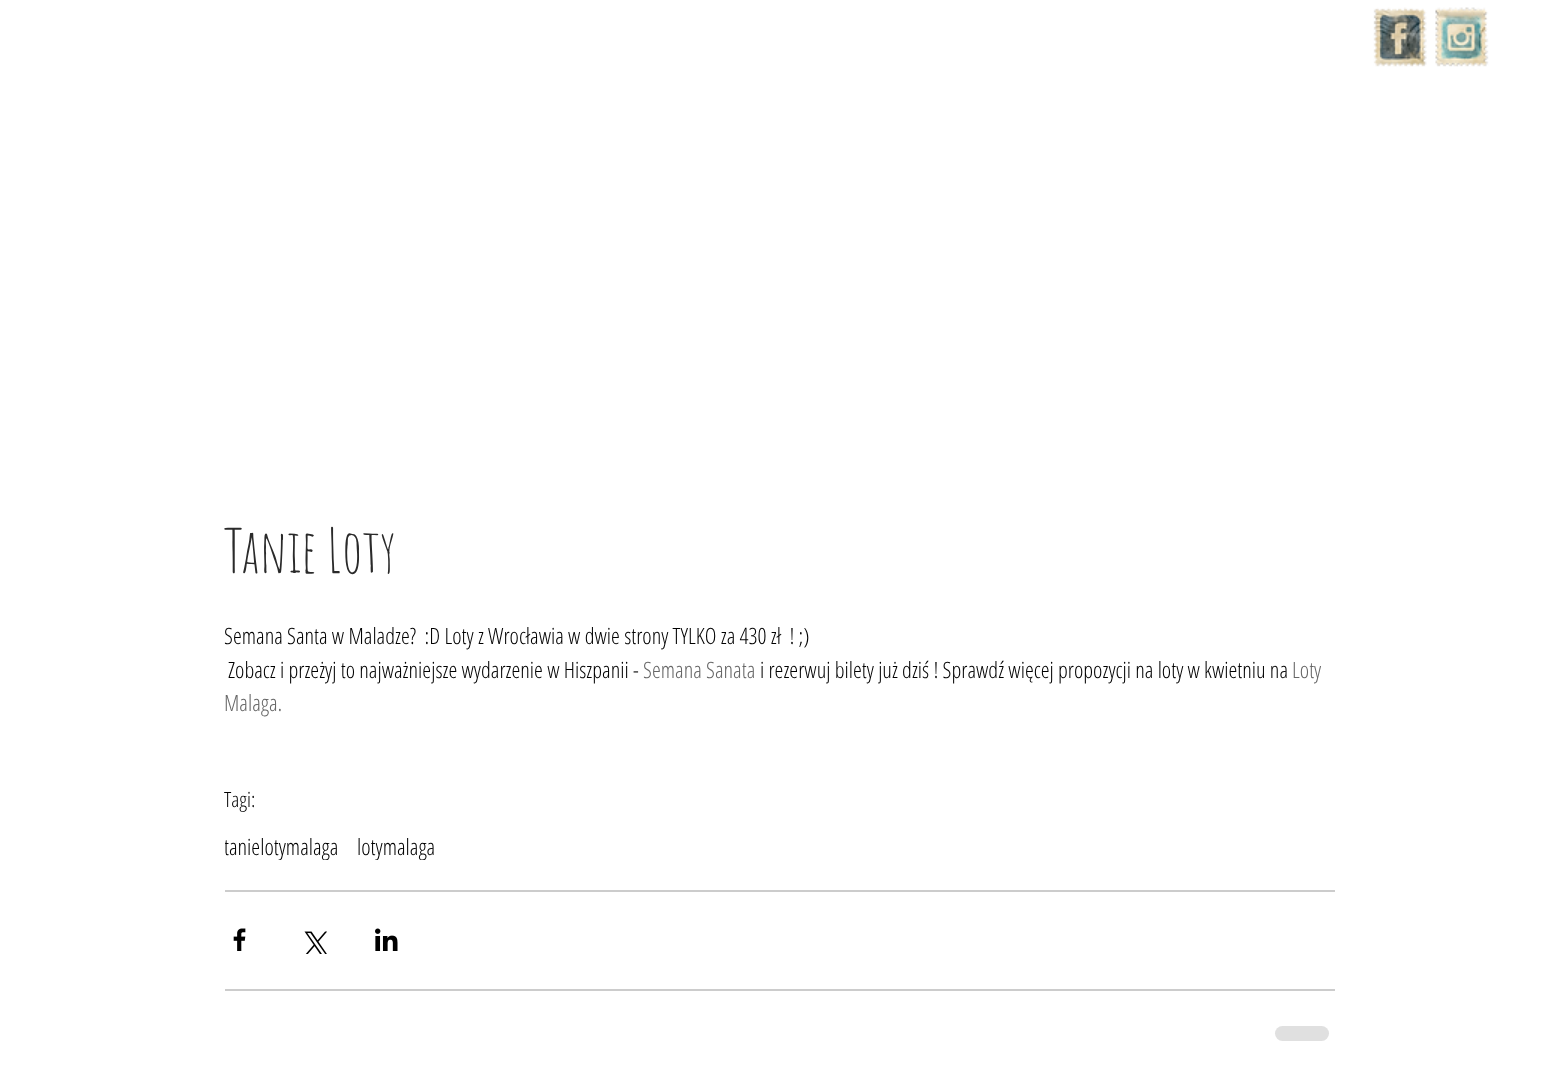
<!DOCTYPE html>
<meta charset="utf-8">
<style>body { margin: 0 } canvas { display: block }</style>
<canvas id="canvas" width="1567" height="1092"></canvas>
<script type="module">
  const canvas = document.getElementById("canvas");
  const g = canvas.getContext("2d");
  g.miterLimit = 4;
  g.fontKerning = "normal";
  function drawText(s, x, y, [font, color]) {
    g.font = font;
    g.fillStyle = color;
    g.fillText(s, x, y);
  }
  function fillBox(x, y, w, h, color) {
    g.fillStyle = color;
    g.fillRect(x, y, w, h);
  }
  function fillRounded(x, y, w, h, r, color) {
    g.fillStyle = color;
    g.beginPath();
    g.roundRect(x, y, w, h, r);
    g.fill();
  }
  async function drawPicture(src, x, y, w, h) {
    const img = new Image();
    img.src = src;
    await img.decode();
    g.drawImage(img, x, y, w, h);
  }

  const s1 = ["60px Amatic SC", "#2A2A2A"];
  const s2 = ["300 22.5px Open Sans Condensed", "#000000"];
  const s3 = ["300 22.5px Open Sans Condensed", "#666666"];
  const s4 = ["300 21px Open Sans Condensed", "#000000"];

  fillBox(0, 0, 1567, 1092, "#FFFFFF");
  await drawPicture("pic1.png", 1373, 7, 54, 60);
  await drawPicture("pic2.png", 1435, 7, 54, 60);
  drawText("Tanie Loty", 224, 573, s1);
  drawText("Semana Santa w Maladze?  :D Loty z Wrocławia w dwie strony TYLKO za 430 zł  ! ;)", 224, 644, s2);
  drawText("Zobacz i przeżyj to najważniejsze wydarzenie w Hiszpanii -", 228, 678, s2);
  drawText("Semana Sanata", 643, 678, s3);
  drawText("i rezerwuj bilety już dziś ! Sprawdź więcej propozycji na loty w kwietniu na", 760, 678, s2);
  drawText("Loty", 1292, 678, s3);
  drawText("Malaga.", 224, 711, s3);
  drawText("Tagi:", 224, 807, s4);
  g.save();
  g.beginPath();
  g.rect(225, 833, 114, 27);
  g.clip();
  drawText("tanielotymalaga", 224, 855, s2);
  g.restore();
  g.save();
  g.beginPath();
  g.rect(357, 833, 78, 27);
  g.clip();
  drawText("lotymalaga", 357, 855, s2);
  g.restore();
  fillBox(225, 890, 1110, 2, "#CCCCCC");
  await drawPicture("pic3.png", 233, 928, 13, 23);
  await drawPicture("pic4.png", 304, 931, 23, 23);
  await drawPicture("pic5.png", 375, 928, 23, 23);
  fillBox(225, 989, 1110, 2, "#CCCCCC");
  fillRounded(1275, 1026, 54, 15, 7.5, "#E0E0E0");
</script>
